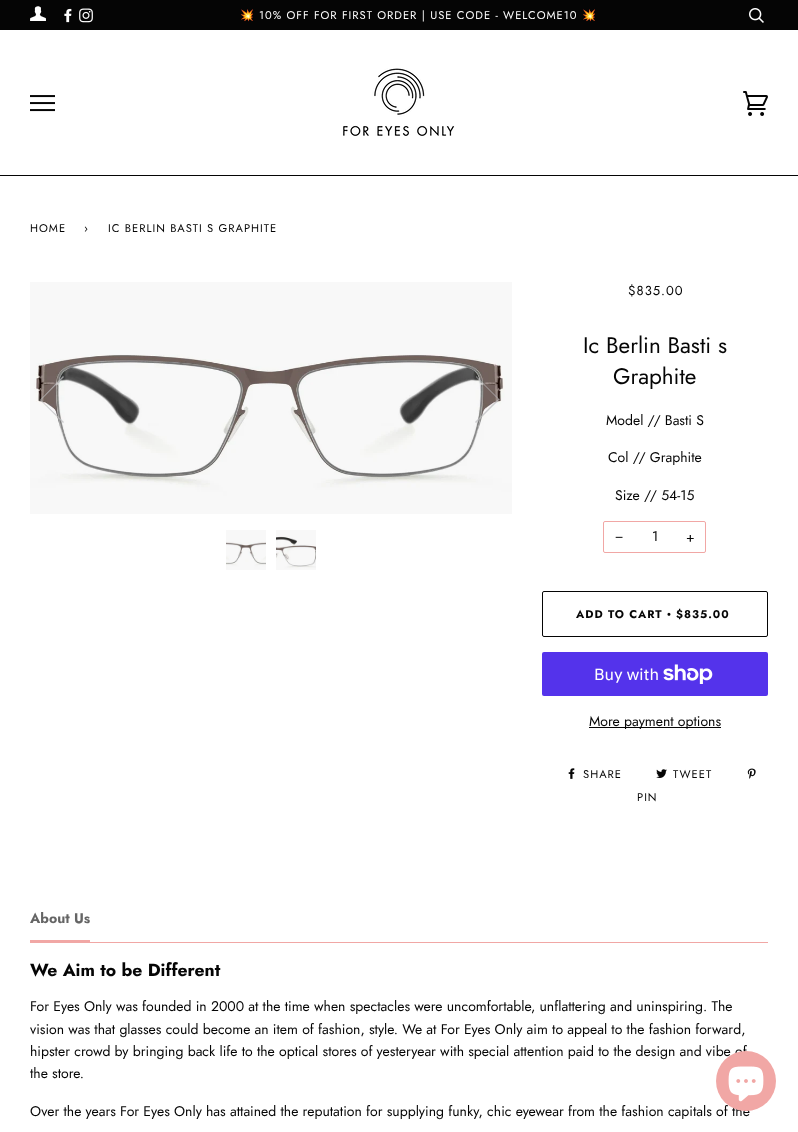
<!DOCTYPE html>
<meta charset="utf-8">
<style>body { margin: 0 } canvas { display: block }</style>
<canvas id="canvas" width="798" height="1132"></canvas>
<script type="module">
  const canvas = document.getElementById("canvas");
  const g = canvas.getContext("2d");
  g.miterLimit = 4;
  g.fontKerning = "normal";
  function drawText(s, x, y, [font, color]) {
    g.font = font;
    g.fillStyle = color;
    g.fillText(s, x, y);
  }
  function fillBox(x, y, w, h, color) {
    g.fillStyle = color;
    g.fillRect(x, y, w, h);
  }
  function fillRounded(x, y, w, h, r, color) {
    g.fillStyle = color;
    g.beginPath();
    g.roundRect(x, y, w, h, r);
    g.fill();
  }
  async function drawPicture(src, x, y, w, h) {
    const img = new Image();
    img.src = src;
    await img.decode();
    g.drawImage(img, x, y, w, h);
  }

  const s1 = ["11.2px Noto Color Emoji", "#FFFFFF"];
  const s2 = ["11.2px Jost", "#FFFFFF"];
  const s3 = ["11.2px Jost", "#050505"];
  const s4 = ["13px Jost", "#050505"];
  const s5 = ["22.5px Jost", "#050505"];
  const s6 = ["14px Jost", "#050505"];
  const s7 = ["14px Liberation Sans", "#050505"];
  const s8 = ["bold 11.2px Jost", "#050505"];
  const s9 = ["bold 11.2px Liberation Serif", "#050505"];
  const s10 = ["16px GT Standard", "#FFFFFF"];
  const s11 = ["bold 14px Jost", "#656565"];
  const s12 = ["bold 17.6px Jost", "#050505"];

  fillBox(0, 0, 798, 1132, "#FFFFFF");
  fillBox(0, 0, 798, 30, "#050505");
  await drawPicture("pic1.png", 30, 6, 16, 15);
  await drawPicture("pic2.png", 64, 8, 8, 15);
  await drawPicture("pic3.png", 79, 8, 14, 15);
  g.letterSpacing = "1px";
  drawText("💥", 240, 19, s1);
  drawText("10% OFF FOR FIRST ORDER | USE CODE - WELCOME10", 259, 19, s2);
  drawText("💥", 582, 19, s1);
  await drawPicture("pic4.png", 749, 8, 15, 15);
  fillBox(0, 175, 798, 1, "#050505");
  await drawPicture("pic5.png", 30, 95, 25, 17);
  await drawPicture("pic6.png", 343, 68, 112, 68);
  await drawPicture("pic7.png", 743, 91, 25, 25);
  drawText("HOME", 30, 232, s3);
  drawText("›", 84, 232, s3);
  drawText("IC BERLIN BASTI S GRAPHITE", 108, 232, s3);
  await drawPicture("pic8.png", 30, 282, 482, 232);
  g.fillStyle = "rgba(190, 190, 192, 0.75)";
  g.beginPath();
  g.moveTo(40, 400);
  g.lineTo(63, 423);
  g.lineTo(64, 422);
  g.lineTo(41, 400);
  g.lineTo(64, 377);
  g.lineTo(63, 376);
  g.closePath();
  g.fill();
  g.beginPath();
  g.moveTo(499, 399);
  g.lineTo(476, 376);
  g.lineTo(476, 377);
  g.lineTo(498, 399);
  g.lineTo(475, 422);
  g.lineTo(476, 423);
  g.lineTo(500, 399);
  g.closePath();
  g.fill();
  await drawPicture("pic9.png", 226, 530, 40, 40);
  await drawPicture("pic10.png", 276, 530, 40, 40);
  drawText("$835.00", 628, 295, s4);
  g.letterSpacing = "0px";
  drawText("Ic Berlin Basti s", 583, 353, s5);
  drawText("Graphite", 613, 384, s5);
  drawText("Model // Basti S", 606, 425, s6);
  drawText("Col // Graphite", 608, 462, s6);
  drawText("Size // 54-15", 615, 500, s6);
  g.beginPath();
  g.roundRect(603.5, 521.5, 102, 31, 1.5);
  g.strokeStyle = "#F1A7A5";
  g.stroke();
  drawText("−", 615, 542, s7);
  drawText("1", 652, 541, s6);
  drawText("+", 686, 542, s6);
  g.beginPath();
  g.roundRect(542.5, 591.5, 225, 45, 1.5);
  g.strokeStyle = "#050505";
  g.stroke();
  g.letterSpacing = "1px";
  drawText("ADD TO CART", 576, 618, s8);
  drawText("•", 667, 618, s9);
  drawText("$835.00", 676, 618, s8);
  fillRounded(542, 652, 226, 44, 2, "#5433EB");
  g.letterSpacing = "0px";
  drawText("Buy with", 594, 680, s10);
  await drawPicture("pic11.png", 663, 664, 50, 20);
  fillBox(589, 727, 132, 1, "#050505");
  drawText("More payment options", 589, 726, s6);
  await drawPicture("pic12.png", 568, 768, 7, 11);
  g.letterSpacing = "1px";
  drawText("SHARE", 583, 778, s3);
  await drawPicture("pic13.png", 656, 769, 11, 9);
  drawText("TWEET", 673, 778, s3);
  await drawPicture("pic14.png", 747, 768, 9, 11);
  drawText("PIN", 637, 801, s3);
  fillBox(30, 940, 60, 2, "#F1A7A5");
  g.letterSpacing = "0px";
  drawText("About Us", 30, 923, s11);
  fillBox(30, 942, 738, 1, "#F1A7A5");
  drawText("We Aim to be Different", 30, 976, s12);
  drawText("For Eyes Only was founded in 2000 at the time when spectacles were uncomfortable, unflattering and uninspiring. The", 30, 1011, s6);
  drawText("vision was that glasses could become an item of fashion, style. We at For Eyes Only aim to appeal to the fashion forward,", 30, 1034, s6);
  drawText("hipster crowd by bringing back life to the optical stores of yesteryear with special attention paid to the design and vibe of", 30, 1056, s6);
  drawText("the store.", 30, 1078, s6);
  drawText("Over the years For Eyes Only has attained the reputation for supplying funky, chic eyewear from the fashion capitals of the", 30, 1116, s6);
  g.fillStyle = "#F1A7A5";
  g.beginPath();
  g.arc(746, 1081, 30, 0, Math.PI * 2);
  g.fill();
  await drawPicture("pic15.png", 728, 1066, 36, 36);
</script>
